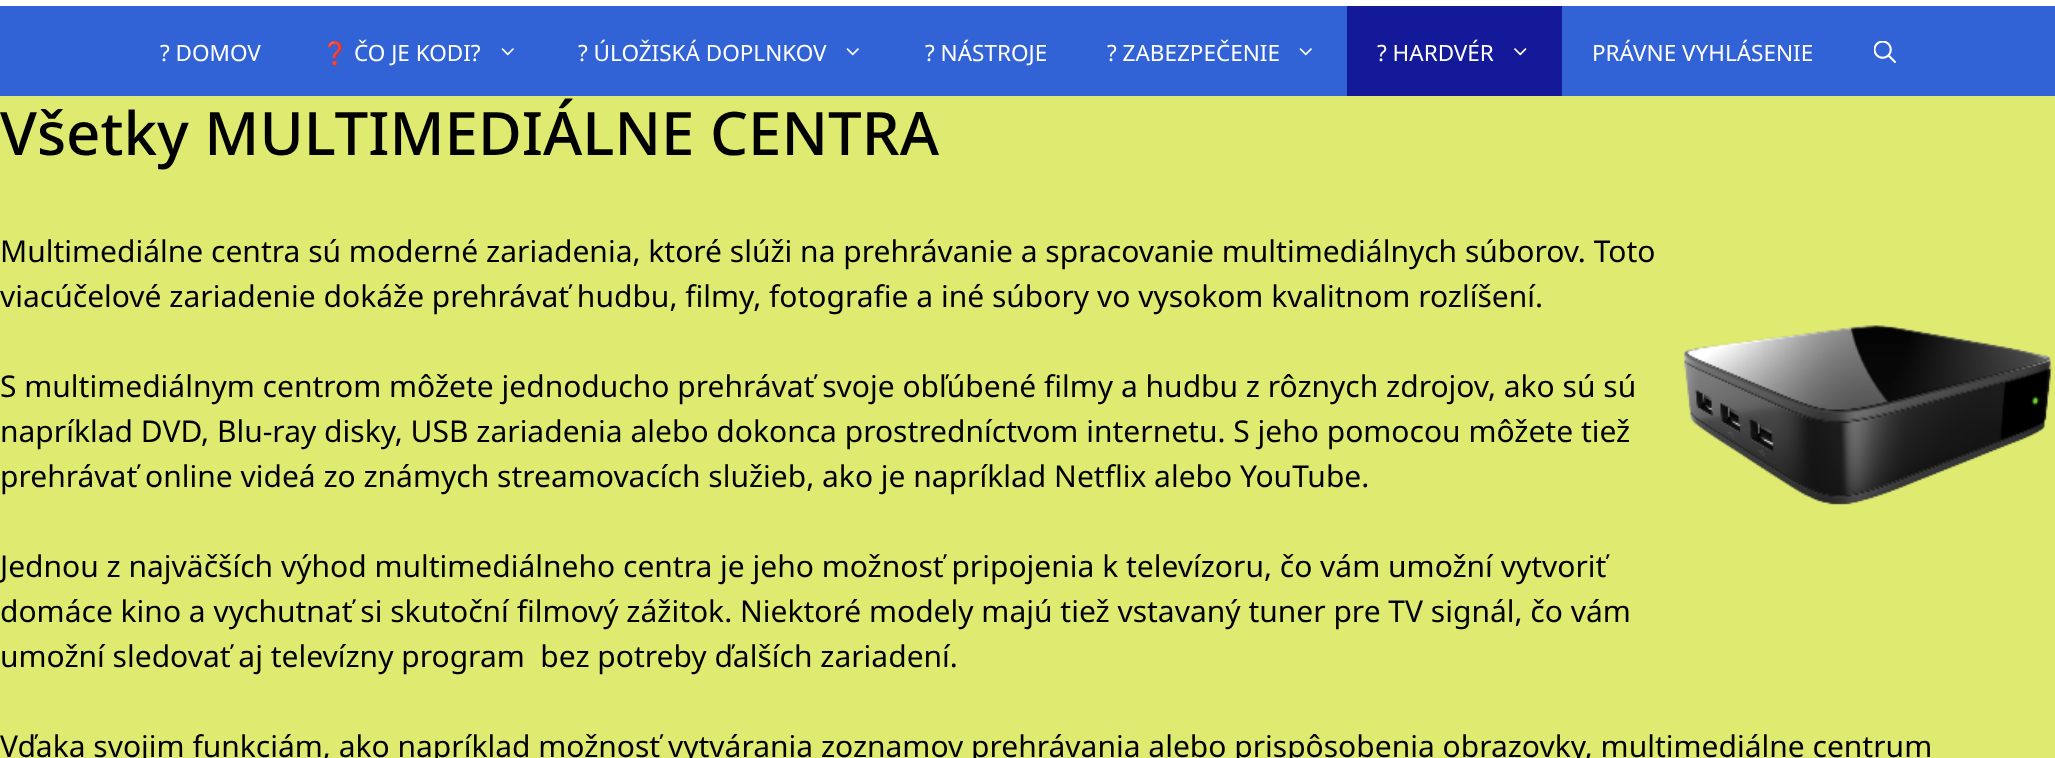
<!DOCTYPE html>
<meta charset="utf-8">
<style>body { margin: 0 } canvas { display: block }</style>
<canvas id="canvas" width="2055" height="758"></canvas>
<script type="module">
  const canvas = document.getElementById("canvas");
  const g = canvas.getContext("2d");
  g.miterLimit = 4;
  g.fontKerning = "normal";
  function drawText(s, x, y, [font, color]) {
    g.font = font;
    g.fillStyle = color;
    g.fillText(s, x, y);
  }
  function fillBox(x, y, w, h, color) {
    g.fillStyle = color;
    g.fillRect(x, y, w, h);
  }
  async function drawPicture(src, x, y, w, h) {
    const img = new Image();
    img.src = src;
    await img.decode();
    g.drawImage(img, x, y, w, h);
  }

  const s1 = ["22.5px Noto Sans", "#FFFFFF"];
  const s2 = ["22.5px Noto Color Emoji", "#FFFFFF"];
  const s3 = ["500 60px Noto Sans", "#000000"];
  const s4 = ["30px Noto Sans", "#000000"];

  fillBox(0, 0, 2055, 758, "#DEEA70");
  fillBox(0, 0, 2055, 6, "#FFFFFF");
  fillBox(0, 6, 2055, 90, "#3263D6");
  drawText("? DOMOV", 160, 61, s1);
  drawText("❓", 321, 61, s2);
  drawText("ČO JE KODI?", 354, 61, s1);
  await drawPicture("pic1.png", 501, 48, 13, 8);
  drawText("? ÚLOŽISKÁ DOPLNKOV", 578, 61, s1);
  await drawPicture("pic1.png", 846, 48, 13, 8);
  drawText("?️ NÁSTROJE", 925, 61, s1);
  drawText("? ZABEZPEČENIE", 1107, 61, s1);
  await drawPicture("pic1.png", 1299, 48, 13, 8);
  fillBox(1347, 6, 215, 90, "#14199A");
  drawText("? HARDVÉR", 1377, 61, s1);
  await drawPicture("pic2.png", 1514, 48, 13, 8);
  drawText("PRÁVNE VYHLÁSENIE", 1592, 61, s1);
  await drawPicture("pic3.png", 1874, 41, 22, 22);
  drawText("Všetky MULTIMEDIÁLNE CENTRA", 0, 155, s3);
  drawText("Multimediálne centra sú moderné zariadenia, ktoré slúži na prehrávanie a spracovanie multimediálnych súborov. Toto", 0, 262, s4);
  drawText("viacúčelové zariadenie dokáže prehrávať hudbu, filmy, fotografie a iné súbory vo vysokom kvalitnom rozlíšení.", 0, 307, s4);
  drawText("S multimediálnym centrom môžete jednoducho prehrávať svoje obľúbené filmy a hudbu z rôznych zdrojov, ako sú sú", 0, 397, s4);
  drawText("napríklad DVD, Blu-ray disky, USB zariadenia alebo dokonca prostredníctvom internetu. S jeho pomocou môžete tiež", 0, 442, s4);
  drawText("prehrávať online videá zo známych streamovacích služieb, ako je napríklad Netflix alebo YouTube.", 0, 487, s4);
  drawText("Jednou z najväčších výhod multimediálneho centra je jeho možnosť pripojenia k televízoru, čo vám umožní vytvoriť", 0, 577, s4);
  drawText("domáce kino a vychutnať si skutoční filmový zážitok. Niektoré modely majú tiež vstavaný tuner pre TV signál, čo vám", 0, 622, s4);
  drawText("umožní sledovať aj televízny program  bez potreby ďalších zariadení.", 0, 667, s4);
  drawText("Vďaka svojim funkciám, ako napríklad možnosť vytvárania zoznamov prehrávania alebo prispôsobenia obrazovky, multimediálne centrum", 0, 757, s4);
  await drawPicture("pic4.png", 1684, 325, 369, 180);
</script>
